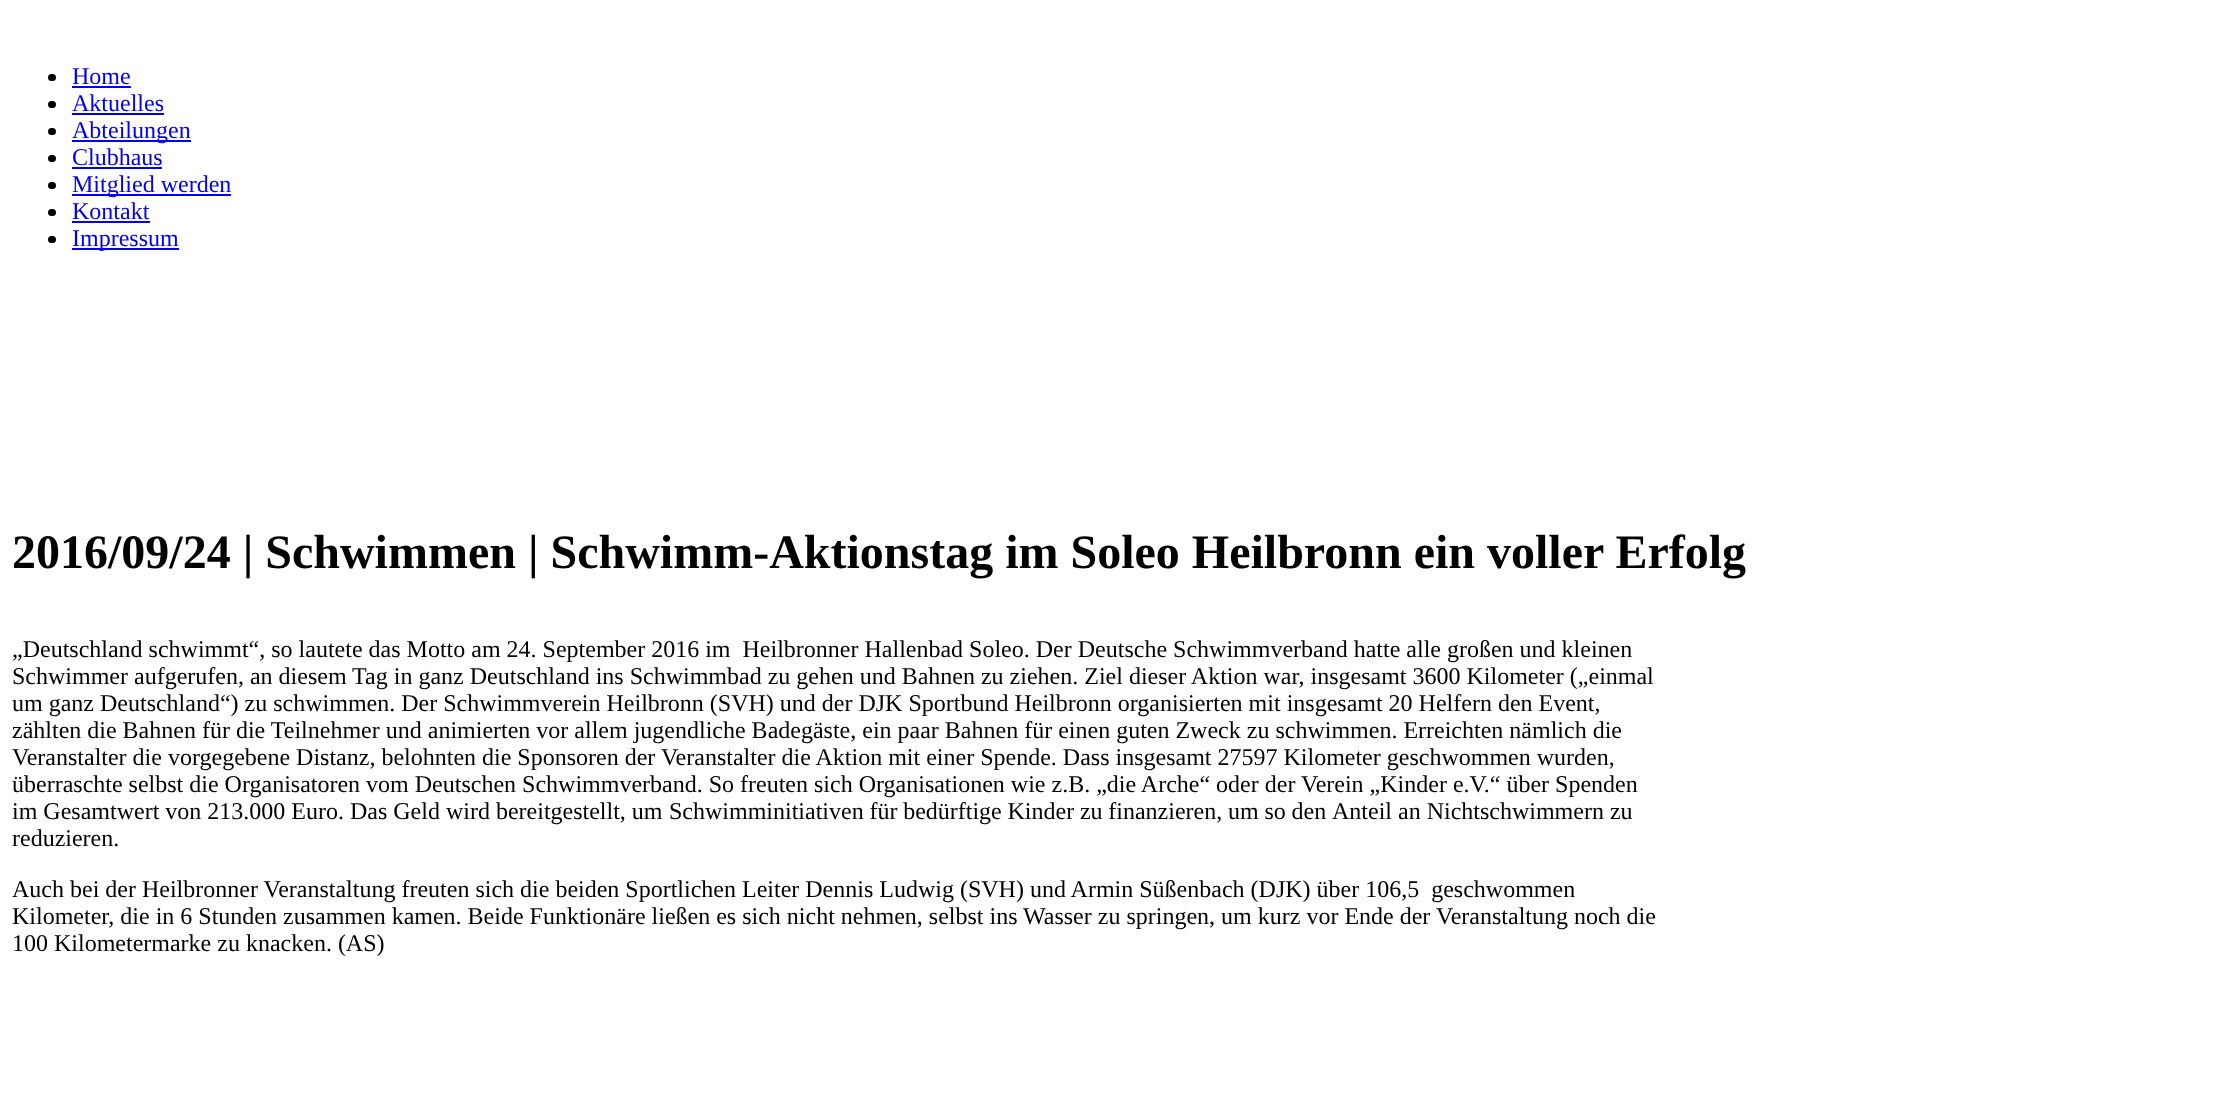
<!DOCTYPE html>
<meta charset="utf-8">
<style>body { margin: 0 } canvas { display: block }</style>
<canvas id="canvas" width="2218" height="1100"></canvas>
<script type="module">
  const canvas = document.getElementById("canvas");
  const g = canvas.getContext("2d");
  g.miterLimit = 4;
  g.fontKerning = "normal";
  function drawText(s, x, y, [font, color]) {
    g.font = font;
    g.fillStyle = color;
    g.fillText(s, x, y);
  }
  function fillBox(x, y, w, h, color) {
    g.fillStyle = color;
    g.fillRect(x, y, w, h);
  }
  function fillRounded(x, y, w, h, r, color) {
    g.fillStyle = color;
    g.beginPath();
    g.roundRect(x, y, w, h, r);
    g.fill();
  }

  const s1 = ["24px Liberation Serif", "#0000EE"];
  const s2 = ["bold 48px Liberation Serif", "#000000"];
  const s3 = ["24px Liberation Serif", "#000000"];

  fillBox(0, 0, 2218, 1100, "#FFFFFF");
  fillRounded(48, 74, 8, 7, 3.5, "#000000");
  drawText("Home", 72, 84, s1);
  fillBox(72, 86, 59, 2, "#0000EE");
  fillRounded(48, 101, 8, 7, 3.5, "#000000");
  drawText("Aktuelles", 72, 111, s1);
  fillBox(72, 113, 92, 2, "#0000EE");
  fillRounded(48, 128, 8, 7, 3.5, "#000000");
  fillBox(72, 140, 119, 2, "#0000EE");
  drawText("Abteilungen", 72, 138, s1);
  fillRounded(48, 155, 8, 7, 3.5, "#000000");
  drawText("Clubhaus", 72, 165, s1);
  fillBox(72, 167, 90, 2, "#0000EE");
  fillRounded(48, 182, 8, 7, 3.5, "#000000");
  fillBox(72, 194, 159, 2, "#0000EE");
  drawText("Mitglied werden", 72, 192, s1);
  fillRounded(48, 209, 8, 7, 3.5, "#000000");
  drawText("Kontakt", 72, 219, s1);
  fillBox(72, 221, 78, 2, "#0000EE");
  fillRounded(48, 236, 8, 7, 3.5, "#000000");
  fillBox(72, 248, 107, 2, "#0000EE");
  drawText("Impressum", 72, 246, s1);
  drawText("2016/09/24 | Schwimmen | Schwimm-Aktionstag im Soleo Heilbronn ein voller Erfolg", 12, 568, s2);
  drawText("„Deutschland schwimmt“, so lautete das Motto am 24. September 2016 im  Heilbronner Hallenbad Soleo. Der Deutsche Schwimmverband hatte alle großen und kleinen", 12, 657, s3);
  drawText("Schwimmer aufgerufen, an diesem Tag in ganz Deutschland ins Schwimmbad zu gehen und Bahnen zu ziehen. Ziel dieser Aktion war, insgesamt 3600 Kilometer („einmal", 12, 684, s3);
  drawText("um ganz Deutschland“) zu schwimmen. Der Schwimmverein Heilbronn (SVH) und der DJK Sportbund Heilbronn organisierten mit insgesamt 20 Helfern den Event,", 12, 711, s3);
  drawText("zählten die Bahnen für die Teilnehmer und animierten vor allem jugendliche Badegäste, ein paar Bahnen für einen guten Zweck zu schwimmen. Erreichten nämlich die", 12, 738, s3);
  drawText("Veranstalter die vorgegebene Distanz, belohnten die Sponsoren der Veranstalter die Aktion mit einer Spende. Dass insgesamt 27597 Kilometer geschwommen wurden,", 12, 765, s3);
  drawText("überraschte selbst die Organisatoren vom Deutschen Schwimmverband. So freuten sich Organisationen wie z.B. „die Arche“ oder der Verein „Kinder e.V.“ über Spenden", 12, 792, s3);
  drawText("im Gesamtwert von 213.000 Euro. Das Geld wird bereitgestellt, um", 12, 819, s3);
  g.wordSpacing = "-0.25px";
  drawText("Schwimminitiativen für bedürftige Kinder zu finanzieren, um so den", 669, 819, s3);
  g.wordSpacing = "0px";
  drawText("Anteil an Nichtschwimmern zu", 1332, 819, s3);
  drawText("reduzieren.", 12, 846, s3);
  drawText("Auch bei der Heilbronner Veranstaltung freuten sich die beiden Sportlichen Leiter Dennis Ludwig (SVH) und Armin Süßenbach (DJK) über 106,5  geschwommen", 12, 897, s3);
  drawText("Kilometer, die in 6 Stunden zusammen kamen. Beide Funktionäre ließen es sich nicht nehmen, selbst ins Wasser zu springen, um kurz vor Ende der", 12, 924, s3);
  drawText("Veranstaltung noch die", 1436, 924, s3);
  drawText("100 Kilometermarke zu knacken. (AS)", 12, 951, s3);
</script>
